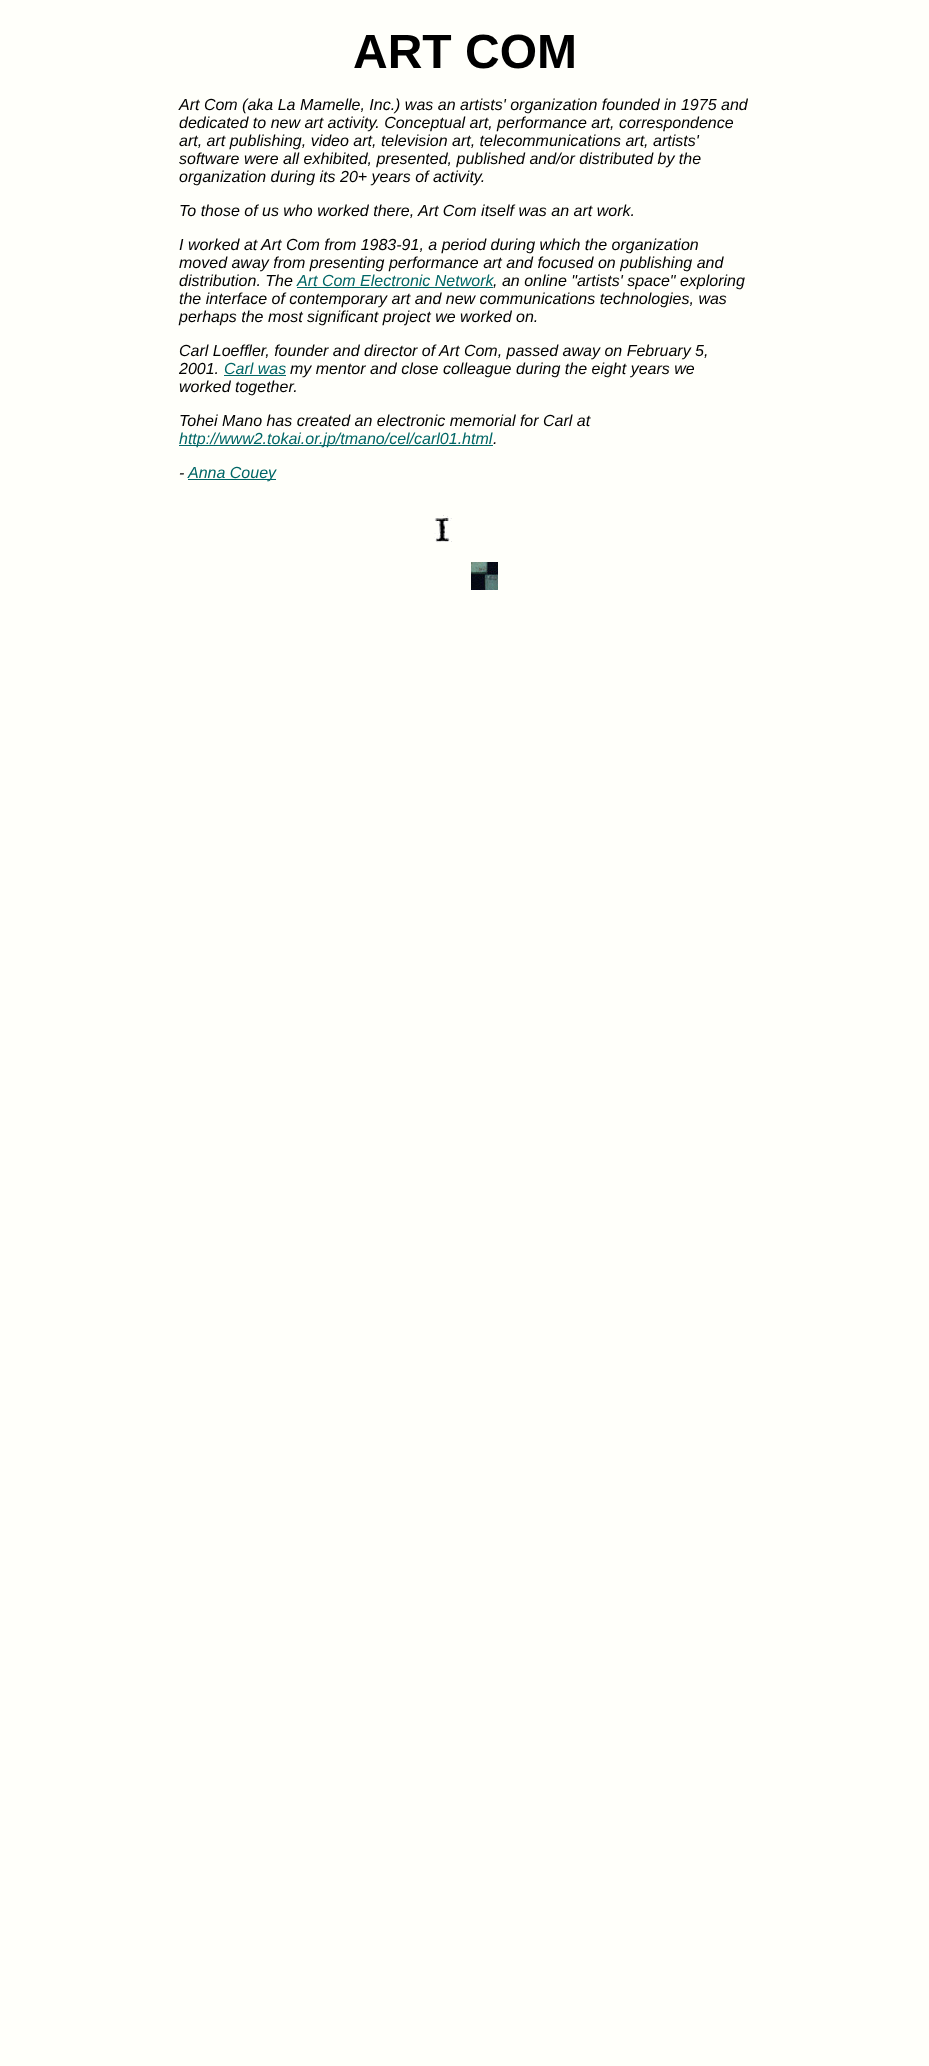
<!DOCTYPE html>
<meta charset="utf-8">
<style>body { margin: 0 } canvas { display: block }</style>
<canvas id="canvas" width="929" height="2066"></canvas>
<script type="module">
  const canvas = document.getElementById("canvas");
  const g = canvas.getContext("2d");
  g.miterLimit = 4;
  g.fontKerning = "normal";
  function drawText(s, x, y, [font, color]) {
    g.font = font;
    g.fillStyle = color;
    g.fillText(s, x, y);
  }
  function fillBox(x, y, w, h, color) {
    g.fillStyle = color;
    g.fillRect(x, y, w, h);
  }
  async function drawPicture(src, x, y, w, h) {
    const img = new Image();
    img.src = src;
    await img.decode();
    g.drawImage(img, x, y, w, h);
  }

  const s1 = ["bold 48px Liberation Sans", "#000000"];
  const s2 = ["italic 16px Liberation Sans", "#000000"];
  const s3 = ["italic 16px Liberation Sans", "#006666"];

  fillBox(0, 0, 929, 2066, "#FFFFFA");
  drawText("ART COM", 353, 68, s1);
  drawText("Art Com (aka La Mamelle, Inc.) was an artists' organization founded in 1975 and", 179, 110, s2);
  drawText("dedicated to new art activity. Conceptual art, performance art, correspondence", 179, 128, s2);
  drawText("art, art publishing, video art, television art, telecommunications art, artists'", 179, 146, s2);
  drawText("software were all exhibited, presented, published and/or distributed by the", 179, 164, s2);
  drawText("organization during its 20+ years of activity.", 179, 182, s2);
  drawText("To those of us who worked there, Art Com itself was an art work.", 179, 216, s2);
  drawText("I worked at Art Com from 1983-91, a period during which the organization", 179, 250, s2);
  drawText("moved away from presenting performance art and focused on publishing and", 179, 268, s2);
  drawText("distribution. The", 179, 286, s2);
  drawText("Art Com Electronic Network", 297, 286, s3);
  drawText(", an online \"artists' space\" exploring", 493, 286, s2);
  fillBox(297, 287, 196, 1, "#006666");
  drawText("the interface of contemporary art and new communications technologies, was", 179, 304, s2);
  drawText("perhaps the most significant project we worked on.", 179, 322, s2);
  drawText("Carl Loeffler, founder and director of Art Com, passed away on February 5,", 179, 356, s2);
  drawText("2001.", 179, 374, s2);
  drawText("Carl was", 224, 374, s3);
  fillBox(224, 375, 62, 1, "#006666");
  drawText("my mentor and close colleague during the eight years we", 290, 374, s2);
  drawText("worked together.", 179, 392, s2);
  drawText("Tohei Mano has created an electronic memorial for Carl at", 179, 426, s2);
  fillBox(179, 445, 314, 1, "#006666");
  drawText("http://www2.tokai.or.jp/tmano/cel/carl01.html", 179, 444, s3);
  drawText(".", 493, 444, s2);
  drawText("-", 179, 478, s2);
  fillBox(188, 479, 88, 1, "#006666");
  drawText("Anna Couey", 188, 478, s3);
  await drawPicture("pic1.png", 434, 515, 18, 28);
  await drawPicture("pic2.png", 471, 562, 27, 28);
</script>
